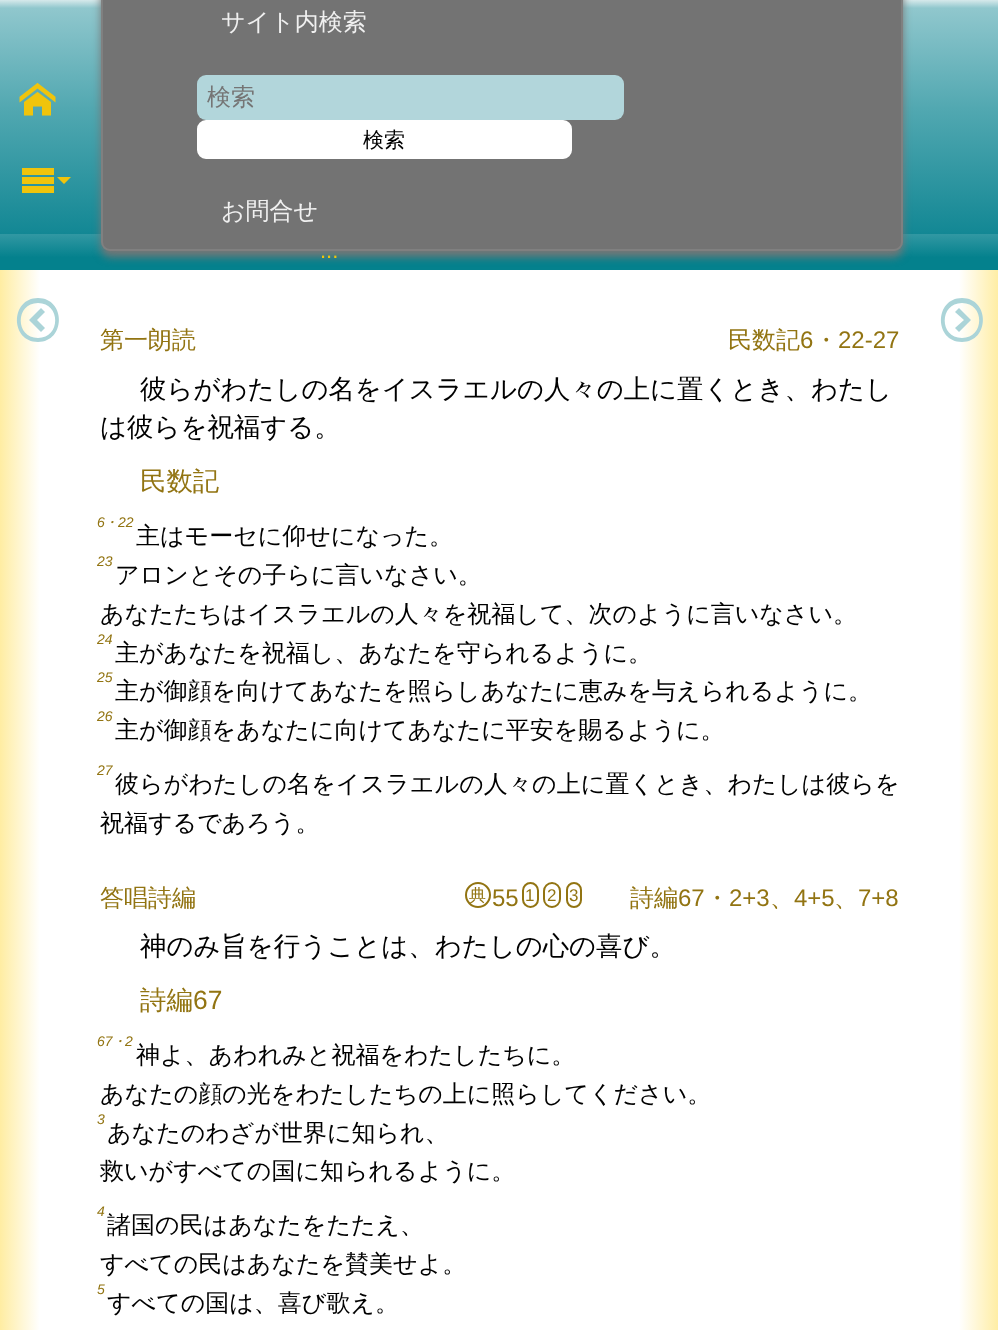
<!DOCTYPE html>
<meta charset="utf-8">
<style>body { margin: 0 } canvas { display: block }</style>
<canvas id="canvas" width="998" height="1330"></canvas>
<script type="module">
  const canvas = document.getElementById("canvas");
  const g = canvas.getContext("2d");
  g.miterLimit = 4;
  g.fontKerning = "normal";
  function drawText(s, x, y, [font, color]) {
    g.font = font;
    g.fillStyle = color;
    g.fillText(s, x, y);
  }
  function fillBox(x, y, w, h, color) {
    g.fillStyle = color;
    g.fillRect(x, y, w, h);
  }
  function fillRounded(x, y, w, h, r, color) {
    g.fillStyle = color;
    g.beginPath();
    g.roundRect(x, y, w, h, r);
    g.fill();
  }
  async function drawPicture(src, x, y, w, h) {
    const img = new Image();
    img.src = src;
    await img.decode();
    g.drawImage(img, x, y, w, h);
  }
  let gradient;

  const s1 = ["500 24px WenQuanYi Zen Hei", "#F0F0F0"];
  const s2 = ["500 24px WenQuanYi Zen Hei", "#757575"];
  const s3 = ["500 21px WenQuanYi Zen Hei", "#000000"];
  const s4 = ["22px Liberation Sans", "#F0C40C"];
  const s5 = ["500 24px WenQuanYi Zen Hei", "#927412"];
  const s6 = ["24px Liberation Sans", "#927412"];
  const s7 = ["500 26.4px WenQuanYi Zen Hei", "#000000"];
  const s8 = ["500 26.4px WenQuanYi Zen Hei", "#927412"];
  const s9 = ["italic 14px Liberation Sans", "#927412"];
  const s10 = ["italic 500 14px WenQuanYi Zen Hei", "#927412"];
  const s11 = ["500 24px WenQuanYi Zen Hei", "#000000"];
  const s12 = ["500 17px WenQuanYi Zen Hei", "#927412"];
  const s13 = ["17px Liberation Sans", "#927412"];
  const s14 = ["26.4px Liberation Sans", "#927412"];

  fillBox(0, 0, 998, 1330, "#FFFFFF");
  gradient = g.createLinearGradient(500, 0, 500, 270);
  gradient.addColorStop(0, "#D6E9EB");
  gradient.addColorStop(0.03, "#90C7CD");
  gradient.addColorStop(0.4, "#52A8B1");
  gradient.addColorStop(1, "#007E8C");
  g.fillStyle = gradient;
  g.fillRect(0, 0, 998, 234);
  await drawPicture("pic1.png", 19, 82, 37, 34);
  g.fillStyle = "#F0C40C";
  g.beginPath();
  g.moveTo(22, 168);
  g.lineTo(54, 168);
  g.lineTo(54, 175);
  g.lineTo(22, 175);
  g.closePath();
  g.moveTo(22, 177);
  g.lineTo(54, 177);
  g.lineTo(54, 184);
  g.lineTo(22, 184);
  g.closePath();
  g.moveTo(22, 186);
  g.lineTo(54, 186);
  g.lineTo(54, 193);
  g.lineTo(22, 193);
  g.closePath();
  g.moveTo(57, 177);
  g.lineTo(64, 184);
  g.lineTo(71, 177);
  g.closePath();
  g.fill();
  gradient = g.createLinearGradient(500, 234, 500, 270);
  gradient.addColorStop(0.03, "#3097A2");
  gradient.addColorStop(0.65, "#04818D");
  g.fillStyle = gradient;
  g.fillRect(0, 234, 998, 36);
  gradient = g.createLinearGradient(0, 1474, 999, 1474);
  gradient.addColorStop(0, "#FFEDA2");
  gradient.addColorStop(0.04, "#FFFFFF");
  gradient.addColorStop(0.96, "#FFFFFF");
  gradient.addColorStop(1, "#FFEDA2");
  g.fillStyle = gradient;
  g.fillRect(0, 270, 998, 1060);
  g.fillStyle = "#757575";
  g.filter = "blur(4.5px)";
  g.beginPath();
  g.roundRect(101, -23, 802, 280, 9);
  g.fill();
  g.filter = "none";
  g.fillStyle = "#737373";
  g.beginPath();
  g.roundRect(102, -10, 800, 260, 8);
  g.fill();
  g.strokeStyle = "#808080";
  g.lineWidth = 2;
  g.stroke();
  drawText("サイト内検索", 221, 30, s1);
  fillRounded(197, 75, 427, 45, 9, "#B2D6DB");
  drawText("検索", 207, 105, s2);
  g.fillStyle = "#FFFFFF";
  g.beginPath();
  g.roundRect(199.5, 122.5, 370, 34, 6.5);
  g.fill();
  g.strokeStyle = "#FFFFFF";
  g.lineWidth = 5;
  g.stroke();
  drawText("検索", 363, 147, s3);
  drawText("お問合せ", 221, 219, s1);
  g.fillStyle = "#ABD4D8";
  g.beginPath();
  g.moveTo(38, 342);
  g.bezierCurveTo(66, 342, 66, 298, 38, 298);
  g.bezierCurveTo(10, 298, 10, 342, 38, 342);
  g.closePath();
  g.moveTo(38, 303);
  g.bezierCurveTo(61, 303, 61, 338, 38, 338);
  g.bezierCurveTo(15, 338, 15, 303, 38, 303);
  g.closePath();
  g.moveTo(45, 312);
  g.lineTo(41, 308);
  g.lineTo(29, 320);
  g.lineTo(41, 332);
  g.lineTo(45, 328);
  g.lineTo(37, 320);
  g.closePath();
  g.fill();
  g.beginPath();
  g.moveTo(962, 298);
  g.bezierCurveTo(934, 298, 934, 342, 962, 342);
  g.bezierCurveTo(990, 342, 990, 298, 962, 298);
  g.closePath();
  g.moveTo(962, 338);
  g.bezierCurveTo(939, 338, 939, 303, 962, 303);
  g.bezierCurveTo(985, 303, 985, 338, 962, 338);
  g.closePath();
  g.moveTo(955, 328);
  g.lineTo(959, 332);
  g.lineTo(971, 320);
  g.lineTo(959, 308);
  g.lineTo(955, 312);
  g.lineTo(964, 320);
  g.closePath();
  g.fill();
  drawText("...", 320, 258, s4);
  drawText("第一朗読", 100, 348, s5);
  drawText("民数記", 728, 348, s5);
  drawText("6", 800, 348, s6);
  drawText("・", 814, 348, s5);
  drawText("22-27", 838, 348, s6);
  drawText("彼らがわたしの名をイスラエルの人々の上に置くとき、わたし", 140, 398, s7);
  drawText("は彼らを祝福する。", 100, 436, s7);
  drawText("民数記", 140, 490, s8);
  drawText("6", 97, 527, s9);
  drawText("・", 104, 527, s10);
  drawText("22", 118, 527, s9);
  drawText("主はモーセに仰せになった。", 136, 544, s11);
  drawText("23", 97, 566, s9);
  drawText("アロンとその子らに言いなさい。", 115, 583, s11);
  drawText("あなたたちはイスラエルの人々を祝福して、次のように言いなさい。", 100, 622, s11);
  drawText("24", 97, 644, s9);
  drawText("主があなたを祝福し、あなたを守られるように。", 115, 661, s11);
  drawText("25", 97, 682, s9);
  drawText("主が御顔を向けてあなたを照らしあなたに恵みを与えられるように。", 115, 699, s11);
  drawText("26", 97, 721, s9);
  drawText("主が御顔をあなたに向けてあなたに平安を賜るように。", 115, 738, s11);
  drawText("27", 97, 775, s9);
  g.letterSpacing = "0.1px";
  drawText("彼らがわたしの名をイスラエルの人々の上に置くとき、わたしは彼らを", 115, 792, s11);
  g.letterSpacing = "0px";
  drawText("祝福するであろう。", 100, 831, s11);
  drawText("答唱詩編", 100, 906, s5);
  g.beginPath();
  g.arc(478, 895, 12, 0, Math.PI * 2);
  g.strokeStyle = "#927412";
  g.lineWidth = 2;
  g.stroke();
  drawText("典", 469, 901, s12);
  drawText("55", 492, 906, s6);
  g.beginPath();
  g.roundRect(523, 883, 15, 24, 7.5);
  g.stroke();
  drawText("1", 525, 901, s13);
  g.beginPath();
  g.roundRect(544, 883, 16, 24, 8);
  g.stroke();
  drawText("2", 547, 901, s13);
  g.beginPath();
  g.roundRect(567, 883, 14, 24, 7);
  g.stroke();
  drawText("3", 569, 901, s13);
  drawText("詩編", 630, 906, s5);
  drawText("67", 678, 906, s6);
  drawText("・", 705, 906, s5);
  drawText("2+3", 729, 906, s6);
  drawText("4+5", 794, 906, s6);
  drawText("7+8", 858, 906, s6);
  drawText("、", 770, 906, s5);
  drawText("、", 834, 906, s5);
  drawText("神のみ旨を行うことは、わたしの心の喜び。", 140, 955, s7);
  drawText("詩編", 140, 1009, s8);
  drawText("67", 193, 1009, s14);
  drawText("67", 97, 1046, s9);
  drawText("・", 112, 1046, s10);
  drawText("2", 125, 1046, s9);
  drawText("神よ、あわれみと祝福をわたしたちに。", 136, 1063, s11);
  drawText("あなたの顔の光をわたしたちの上に照らしてください。", 100, 1102, s11);
  drawText("3", 97, 1124, s9);
  drawText("あなたのわざが世界に知られ、", 107, 1141, s11);
  drawText("救いがすべての国に知られるように。", 100, 1179, s11);
  drawText("4", 97, 1216, s9);
  drawText("諸国の民はあなたをたたえ、", 107, 1233, s11);
  drawText("すべての民はあなたを賛美せよ。", 100, 1272, s11);
  drawText("5", 97, 1294, s9);
  drawText("すべての国は、喜び歌え。", 107, 1311, s11);
</script>
